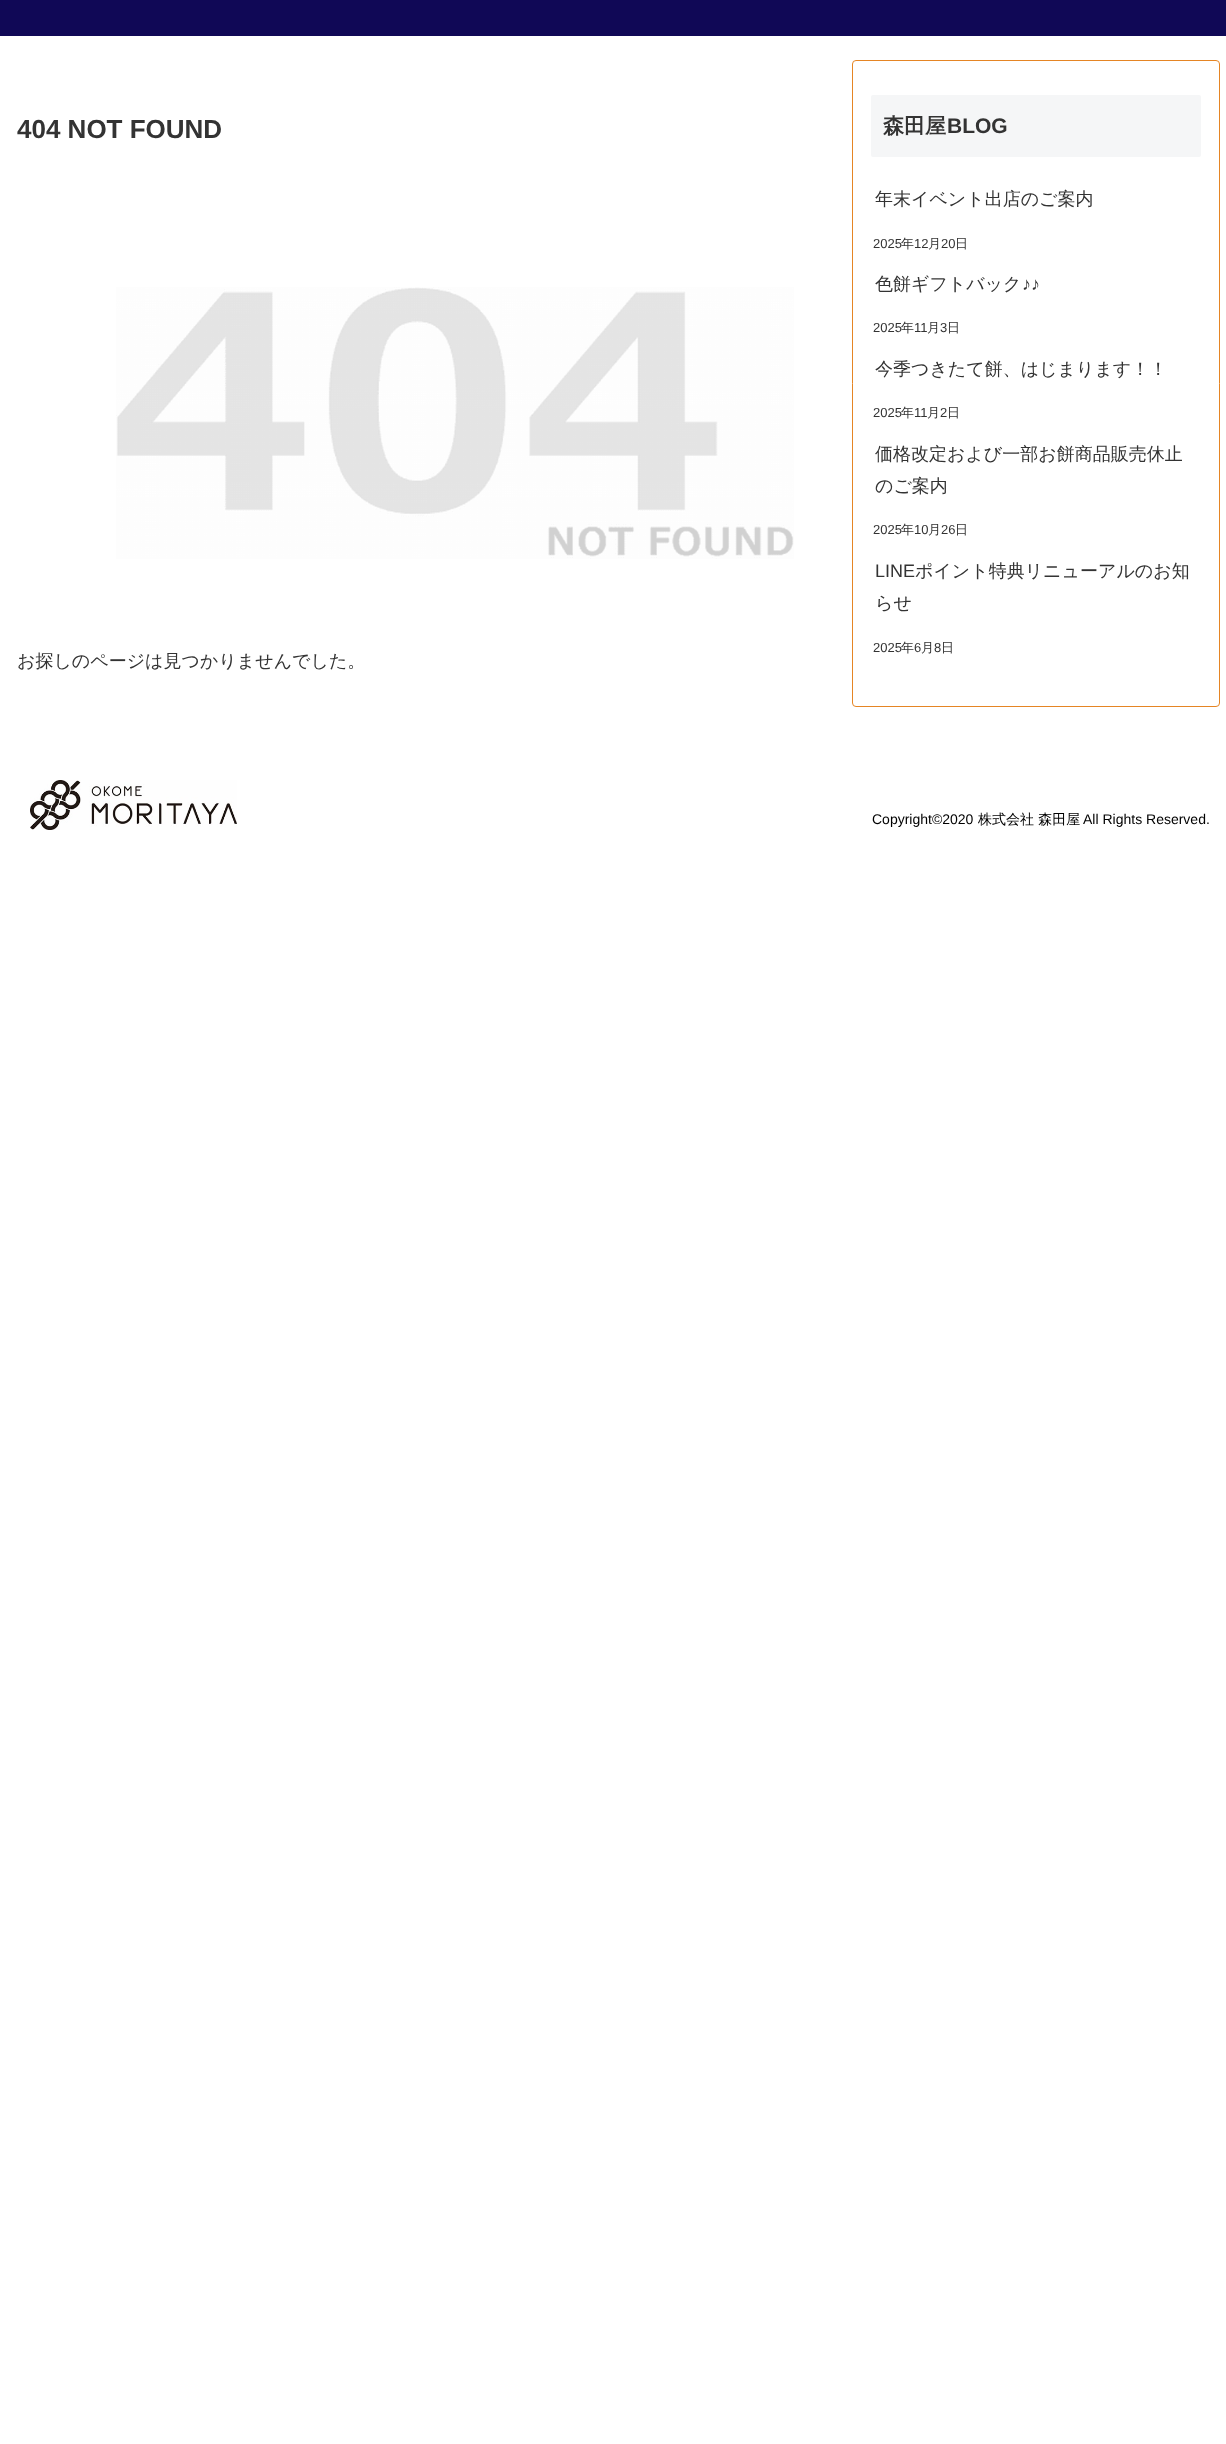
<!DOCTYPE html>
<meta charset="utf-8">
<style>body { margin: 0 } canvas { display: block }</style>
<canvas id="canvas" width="1226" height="2444"></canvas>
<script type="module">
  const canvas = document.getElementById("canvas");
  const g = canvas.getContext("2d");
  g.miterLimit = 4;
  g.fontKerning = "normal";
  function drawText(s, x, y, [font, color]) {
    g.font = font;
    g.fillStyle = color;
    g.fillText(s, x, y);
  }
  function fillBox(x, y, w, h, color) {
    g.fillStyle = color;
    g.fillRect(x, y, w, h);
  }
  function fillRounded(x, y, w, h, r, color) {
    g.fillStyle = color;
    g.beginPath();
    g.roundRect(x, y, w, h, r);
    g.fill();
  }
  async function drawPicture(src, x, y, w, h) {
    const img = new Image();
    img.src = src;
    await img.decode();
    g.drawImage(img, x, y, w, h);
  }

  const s1 = ["bold 26px Liberation Sans", "#333333"];
  const s2 = ["500 18px WenQuanYi Zen Hei", "#333333"];
  const s3 = ["bold 21px WenQuanYi Zen Hei", "#333333"];
  const s4 = ["bold 21px Liberation Sans", "#333333"];
  const s5 = ["13px Liberation Sans", "#333333"];
  const s6 = ["500 13px WenQuanYi Zen Hei", "#333333"];
  const s7 = ["18px Liberation Sans", "#333333"];
  const s8 = ["14px Liberation Sans", "#000000"];
  const s9 = ["500 14px WenQuanYi Zen Hei", "#000000"];

  fillBox(0, 0, 1226, 2444, "#FFFFFF");
  fillBox(0, 0, 1226, 36, "#100856");
  drawText("404 NOT FOUND", 17, 138, s1);
  await drawPicture("pic1.png", 116, 287, 678, 272);
  drawText("お探しのページは見つかりませんでした。", 17, 667, s2);
  g.beginPath();
  g.roundRect(852.5, 60.5, 367, 646, 3.5);
  g.strokeStyle = "#E58524";
  g.stroke();
  fillRounded(871, 95, 330, 62, 2, "#F5F6F7");
  drawText("森田屋", 883, 133, s3);
  drawText("BLOG", 947, 133, s4);
  drawText("年末イベント出店のご案内", 875, 205, s2);
  drawText("2025", 873, 248, s5);
  drawText("年", 901, 248, s6);
  drawText("12", 914, 248, s5);
  drawText("月", 928, 248, s6);
  drawText("20", 941, 248, s5);
  drawText("日", 955, 248, s6);
  drawText("色餅ギフトバック", 875, 290, s2);
  drawText("♪♪", 1022, 290, s7);
  drawText("2025", 873, 332, s5);
  drawText("年", 901, 332, s6);
  drawText("11", 914, 332, s5);
  drawText("月", 927, 332, s6);
  drawText("3", 940, 332, s5);
  drawText("日", 947, 332, s6);
  drawText("今季つきたて餅、はじまります！！", 875, 375, s2);
  drawText("2025", 873, 417, s5);
  drawText("年", 901, 417, s6);
  drawText("11", 914, 417, s5);
  drawText("月", 927, 417, s6);
  drawText("2", 940, 417, s5);
  drawText("日", 947, 417, s6);
  drawText("価格改定および一部お餅商品販売休止", 875, 460, s2);
  drawText("のご案内", 875, 492, s2);
  drawText("2025", 873, 534, s5);
  drawText("年", 901, 534, s6);
  drawText("10", 914, 534, s5);
  drawText("月", 928, 534, s6);
  drawText("26", 941, 534, s5);
  drawText("日", 955, 534, s6);
  drawText("LINE", 875, 577, s7);
  drawText("ポイント特典リニューアルのお知", 915, 577, s2);
  drawText("らせ", 875, 609, s2);
  drawText("2025", 873, 652, s5);
  drawText("年", 901, 652, s6);
  drawText("6", 914, 652, s5);
  drawText("月", 921, 652, s6);
  drawText("8", 934, 652, s5);
  drawText("日", 941, 652, s6);
  await drawPicture("pic2.png", 30, 780, 207, 50);
  drawText("Copyright©2020", 872, 824, s8);
  drawText("株式会社 森田屋", 978, 824, s9);
  drawText("All Rights Reserved.", 1083, 824, s8);
</script>
